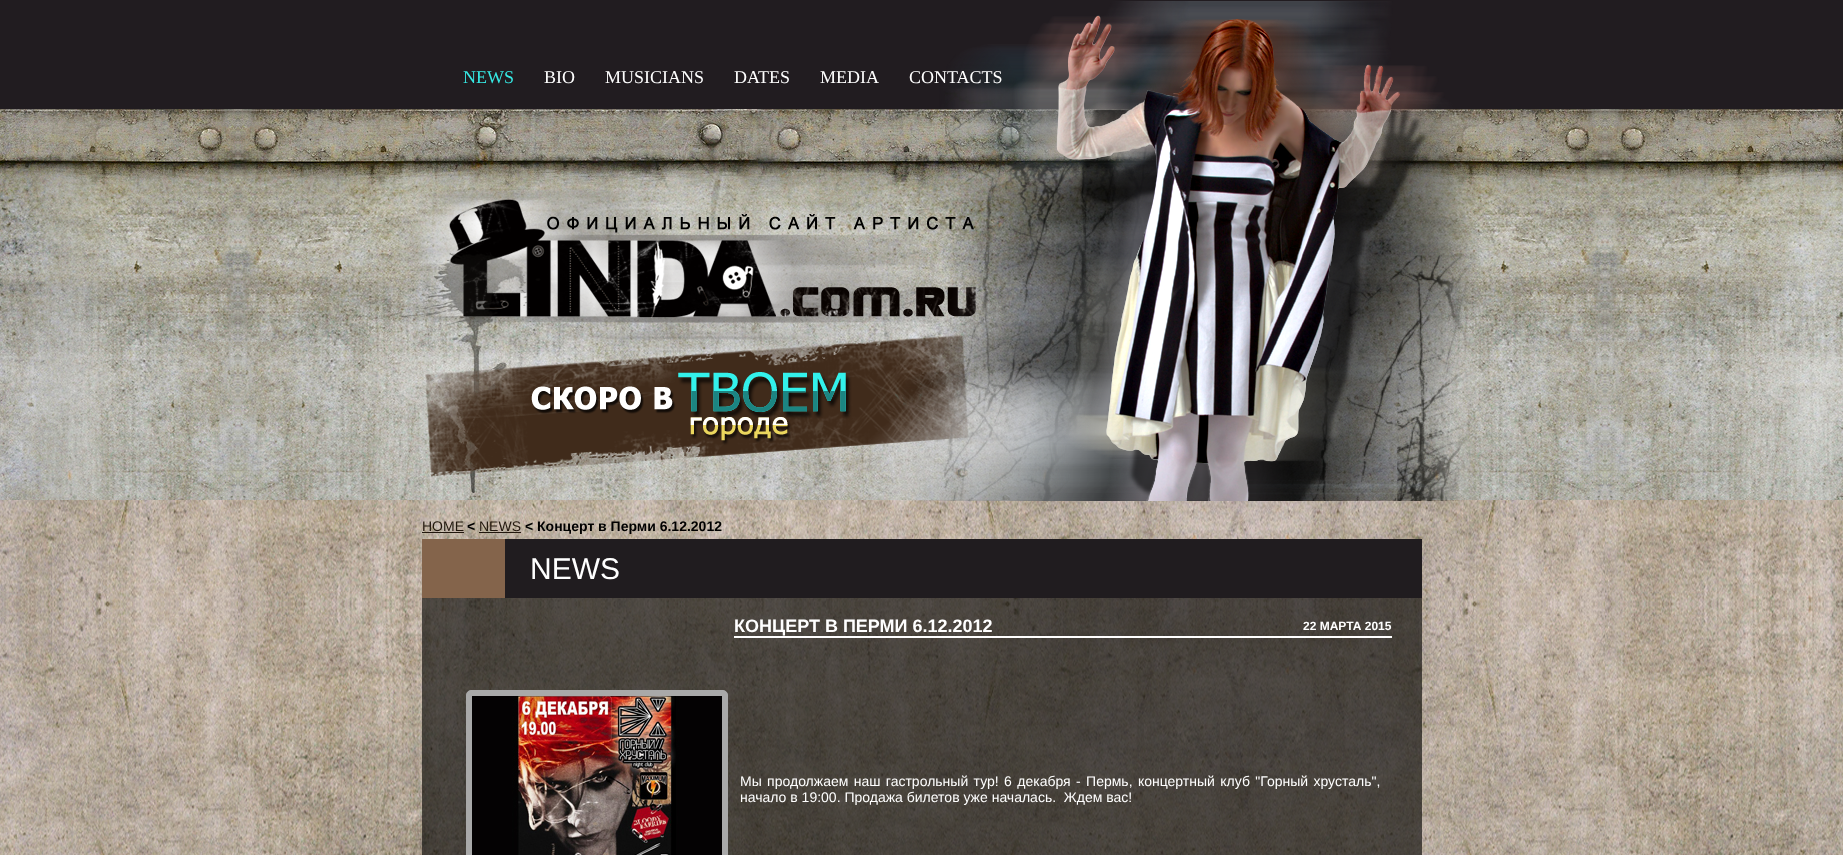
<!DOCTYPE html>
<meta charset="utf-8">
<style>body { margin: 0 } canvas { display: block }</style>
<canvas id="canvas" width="1843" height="855"></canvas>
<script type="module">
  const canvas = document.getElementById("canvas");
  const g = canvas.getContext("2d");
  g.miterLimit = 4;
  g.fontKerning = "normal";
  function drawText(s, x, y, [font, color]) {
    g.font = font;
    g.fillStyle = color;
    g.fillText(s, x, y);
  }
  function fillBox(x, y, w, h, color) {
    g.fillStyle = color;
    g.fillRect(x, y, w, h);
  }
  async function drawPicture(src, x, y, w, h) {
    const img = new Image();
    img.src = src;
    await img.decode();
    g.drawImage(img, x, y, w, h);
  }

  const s1 = ["18px Liberation Serif", "#36E8E3"];
  const s2 = ["18px Liberation Serif", "#FFFFFF"];
  const s3 = ["14px Liberation Sans", "#21170D"];
  const s4 = ["bold 14px Liberation Sans", "#000000"];
  const s5 = ["30px Liberation Sans", "#FFFFFF"];
  const s6 = ["bold 18px Liberation Sans", "#FFFFFF"];
  const s7 = ["bold 12px Liberation Sans", "#FFFFFF"];
  const s8 = ["14px Liberation Sans", "#FFFFFF"];

  fillBox(0, 0, 1843, 855, "#FFFFFF");
  await drawPicture("pic1.png", 0, 500, 1843, 355);
  fillBox(0, 0, 1843, 109, "#211C20");
  await drawPicture("pic2.png", 0, 109, 1843, 391);
  await drawPicture("pic4.png", 390, 83, 1087, 418);
  await drawPicture("pic3.png", 868, 1, 613, 500);
  drawText("NEWS", 463, 83, s1);
  drawText("BIO", 544, 83, s2);
  drawText("MUSICIANS", 605, 83, s2);
  drawText("DATES", 734, 83, s2);
  drawText("MEDIA", 820, 83, s2);
  drawText("CONTACTS", 909, 83, s2);
  drawText("HOME", 422, 531, s3);
  fillBox(422, 532, 42, 1, "#21170D");
  drawText("<", 467, 531, s4);
  drawText("NEWS", 479, 531, s3);
  fillBox(479, 532, 42, 1, "#21170D");
  drawText("< Концерт в Перми 6.12.2012", 525, 531, s4);
  fillBox(422, 598, 1000, 257, "rgba(18, 16, 13, 0.68)");
  fillBox(422, 539, 83, 59, "#84644B");
  fillBox(505, 539, 917, 59, "#201C1F");
  drawText("NEWS", 530, 579, s5);
  fillBox(734, 636, 658, 2, "#FFFFFF");
  drawText("КОНЦЕРТ В ПЕРМИ 6.12.2012", 734, 632, s6);
  drawText("22 МАРТА 2015", 1303, 630, s7);
  g.fillStyle = "#A9A9A9";
  g.beginPath();
  g.roundRect(466.5, 690.5, 261, 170, 4.5);
  g.fill();
  g.strokeStyle = "#A9A9A9";
  g.stroke();
  await drawPicture("pic5.png", 472, 696, 250, 159);
  g.wordSpacing = "1.5px";
  drawText("Мы продолжаем наш гастрольный тур! 6 декабря - Пермь, концертный клуб \"Горный хрусталь\",", 740, 786, s8);
  g.wordSpacing = "0px";
  drawText("начало в 19:00. Продажа билетов уже началась.  Ждем вас!", 740, 802, s8);
</script>
